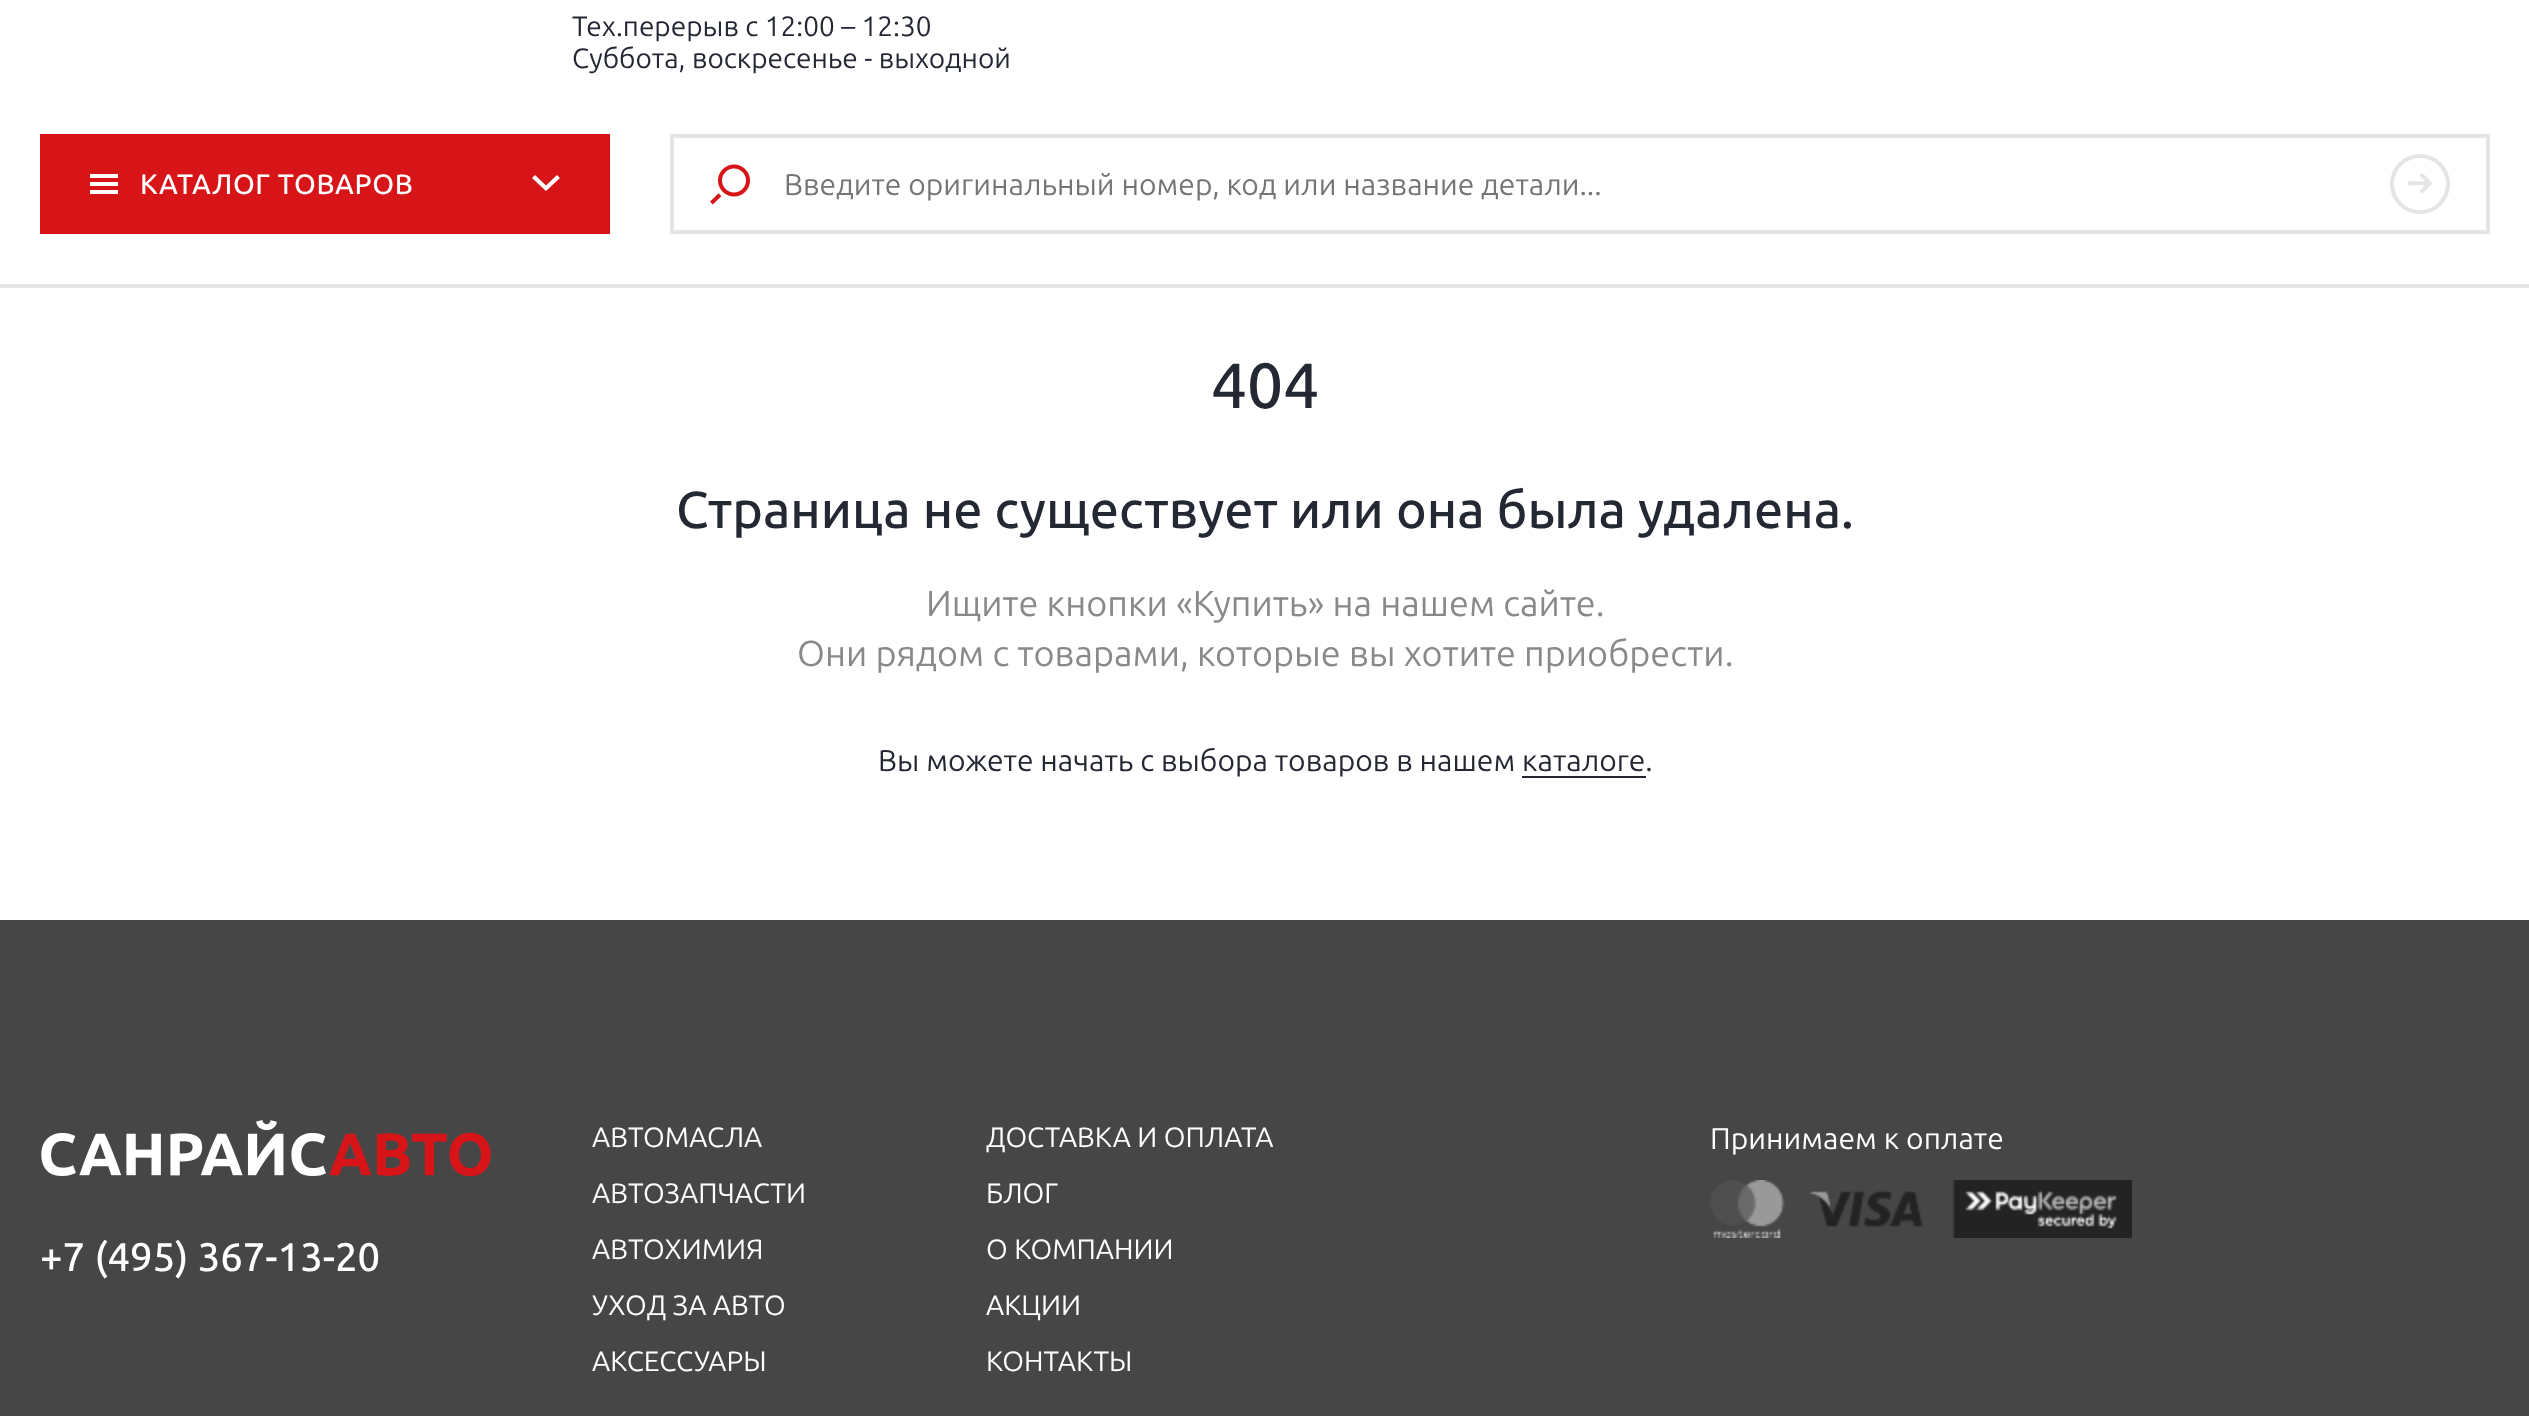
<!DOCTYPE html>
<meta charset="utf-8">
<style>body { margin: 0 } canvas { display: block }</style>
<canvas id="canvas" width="2529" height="1416"></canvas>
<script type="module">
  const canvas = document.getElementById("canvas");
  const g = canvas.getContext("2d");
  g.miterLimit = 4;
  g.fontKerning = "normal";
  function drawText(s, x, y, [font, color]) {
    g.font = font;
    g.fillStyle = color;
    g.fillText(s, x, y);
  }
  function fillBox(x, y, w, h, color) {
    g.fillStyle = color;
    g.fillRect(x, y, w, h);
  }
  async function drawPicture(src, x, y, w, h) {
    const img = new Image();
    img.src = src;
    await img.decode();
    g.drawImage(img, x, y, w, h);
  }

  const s1 = ["28px Ubuntu", "#242833"];
  const s2 = ["500 28px Ubuntu", "#FFFFFF"];
  const s3 = ["30px Ubuntu", "#757575"];
  const s4 = ["500 64px Ubuntu", "#242833"];
  const s5 = ["500 52px Ubuntu", "#242833"];
  const s6 = ["36px Ubuntu", "#898989"];
  const s7 = ["30px Ubuntu", "#242833"];
  const s8 = ["28px Ubuntu", "#FFFFFF"];
  const s9 = ["30px Ubuntu", "#FFFFFF"];
  const s10 = ["500 40px Ubuntu", "#FFFFFF"];

  fillBox(0, 0, 2529, 1416, "#FFFFFF");
  fillBox(0, 284, 2529, 4, "#E4E5E7");
  drawText("Тех.перерыв с 12:00 – 12:30", 572, 36, s1);
  drawText("Суббота, воскресенье - выходной", 572, 68, s1);
  fillBox(40, 134, 570, 100, "#D71518");
  fillBox(90, 174, 28, 4, "#FFFFFF");
  fillBox(90, 182, 28, 4, "#FFFFFF");
  fillBox(90, 190, 28, 4, "#FFFFFF");
  g.letterSpacing = "0.6px";
  drawText("КАТАЛОГ ТОВАРОВ", 140, 194, s2);
  g.beginPath();
  g.moveTo(557, 175);
  g.lineTo(546, 185.5);
  g.lineTo(535, 175);
  g.lineTo(532, 178);
  g.lineTo(546, 191);
  g.lineTo(560, 178);
  g.closePath();
  g.fill();
  await drawPicture("pic1.png", 710, 164, 40, 41);
  g.strokeStyle = "#E4E5E7";
  g.lineWidth = 4;
  g.strokeRect(672, 136, 1816, 96);
  g.letterSpacing = "0px";
  drawText("Введите оригинальный номер, код или название детали...", 784, 195, s3);
  g.beginPath();
  g.arc(2420, 184, 28, 0, Math.PI * 2);
  g.stroke();
  await drawPicture("pic2.png", 2408, 173, 24, 20);
  drawText("404", 1211, 408, s4);
  drawText("Страница не существует или она была удалена.", 676, 528, s5);
  drawText("Ищите кнопки «Купить» на нашем сайте.", 926, 616, s6);
  drawText("Они рядом с товарами, которые вы хотите приобрести.", 797, 666, s6);
  drawText("Вы можете начать с выбора товаров в нашем каталоге.", 878, 771, s7);
  fillBox(1522, 776, 124, 2, "#242833");
  fillBox(0, 920, 2529, 496, "#464646");
  drawText("АВТОМАСЛА", 592, 1147, s8);
  drawText("АВТОЗАПЧАСТИ", 592, 1203, s8);
  drawText("АВТОХИМИЯ", 592, 1259, s8);
  drawText("УХОД ЗА АВТО", 592, 1315, s8);
  drawText("АКСЕССУАРЫ", 592, 1371, s8);
  drawText("ДОСТАВКА И ОПЛАТА", 986, 1147, s8);
  drawText("БЛОГ", 986, 1203, s8);
  drawText("О КОМПАНИИ", 986, 1259, s8);
  drawText("АКЦИИ", 986, 1315, s8);
  drawText("КОНТАКТЫ", 986, 1371, s8);
  drawText("Принимаем к оплате", 1710, 1149, s9);
  await drawPicture("pic3.png", 1710, 1180, 422, 58);
  await drawPicture("pic4.png", 41, 1120, 450, 56);
  drawText("+7 (495) 367-13-20", 40, 1271, s10);
</script>
